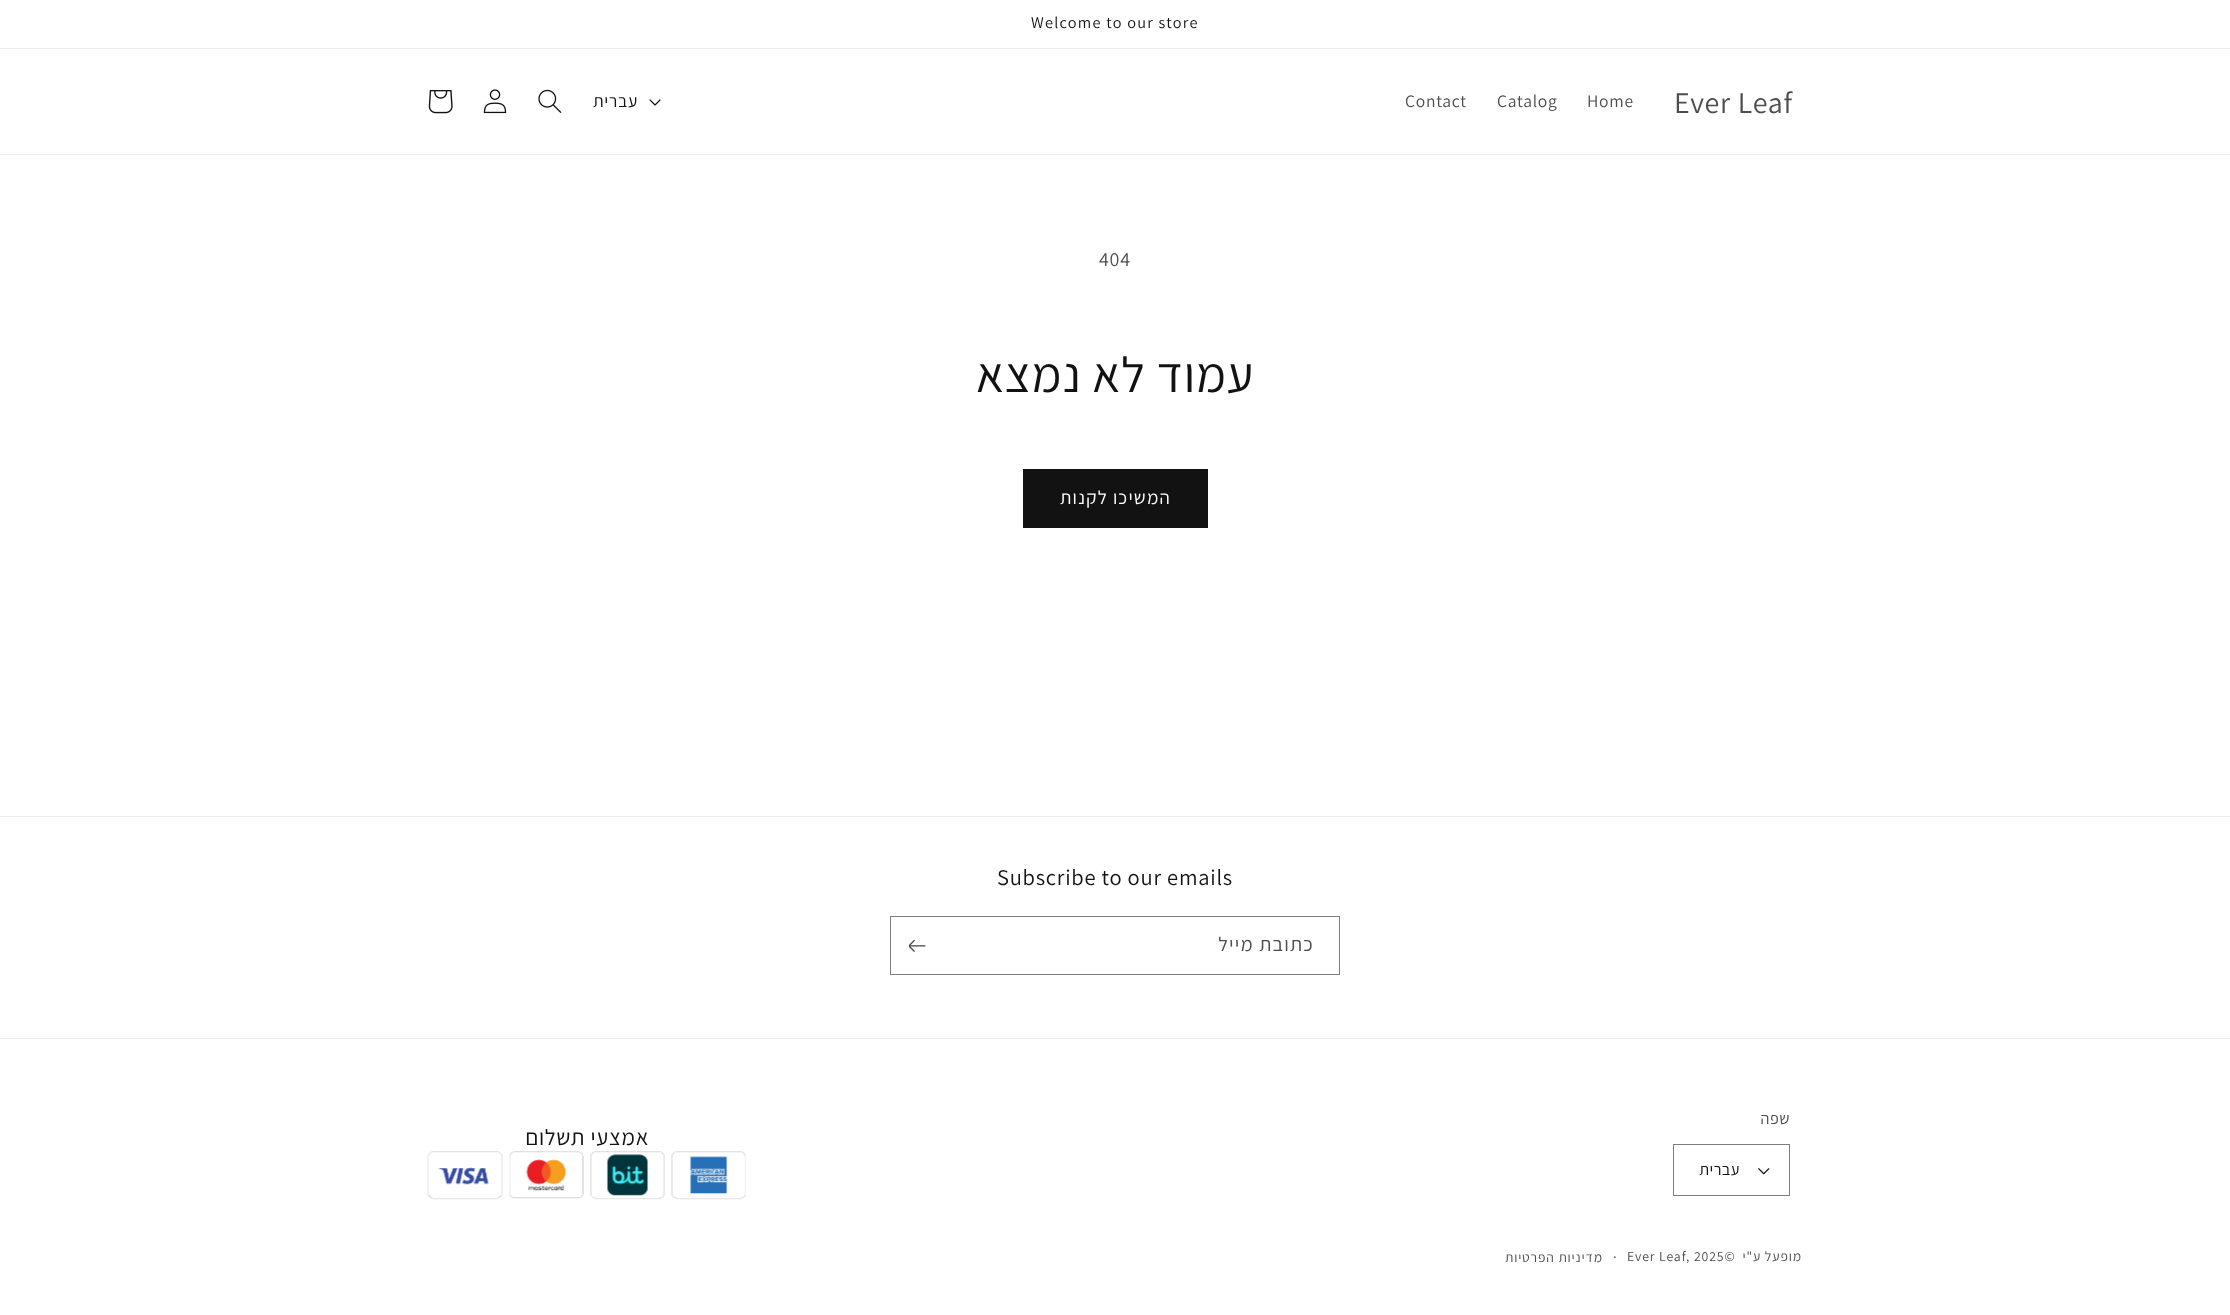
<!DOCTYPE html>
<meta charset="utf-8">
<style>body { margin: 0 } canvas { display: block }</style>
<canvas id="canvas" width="2230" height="1315"></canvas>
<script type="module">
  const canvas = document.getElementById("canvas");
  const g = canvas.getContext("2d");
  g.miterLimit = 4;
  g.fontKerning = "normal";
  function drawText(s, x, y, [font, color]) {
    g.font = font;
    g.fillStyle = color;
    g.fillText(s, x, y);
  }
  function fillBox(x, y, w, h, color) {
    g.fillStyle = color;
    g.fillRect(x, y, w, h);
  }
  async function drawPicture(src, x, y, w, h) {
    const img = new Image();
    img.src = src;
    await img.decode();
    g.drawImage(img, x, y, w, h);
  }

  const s1 = ["16.25px Assistant", "#121212"];
  const s2 = ["17.5px Assistant", "#121212"];
  const s3 = ["17.5px Assistant", "#4D4D4D"];
  const s4 = ["30px Assistant", "#4D4D4D"];
  const s5 = ["20px Assistant", "#4D4D4D"];
  const s6 = ["50px Assistant", "#121212"];
  const s7 = ["18.75px Assistant", "#FFFFFF"];
  const s8 = ["22.5px Assistant", "#121212"];
  const s9 = ["16.25px Assistant", "#4D4D4D"];
  const s10 = ["13.75px Assistant", "#4D4D4D"];
  const s11 = ["15px Assistant", "#4D4D4D"];

  fillBox(0, 0, 2230, 1315, "#FFFFFF");
  fillBox(0, 48, 2230, 1, "#ECECEC");
  g.letterSpacing = "1.25px";
  drawText("Welcome to our store", 1031, 28, s1);
  fillBox(0, 154, 2230, 1, "#ECECEC");
  await drawPicture("pic1.png", 428, 90, 25, 24);
  await drawPicture("pic2.png", 483, 89, 24, 25);
  await drawPicture("pic3.png", 538, 89, 24, 24);
  g.letterSpacing = "0.75px";
  g.direction = "rtl";
  drawText("עברית", 638, 107, s2);
  await drawPicture("pic4.png", 649, 99, 12, 7);
  g.direction = "ltr";
  drawText("Contact", 1405, 107, s3);
  drawText("Catalog", 1497, 107, s3);
  drawText("Home", 1587, 107, s3);
  drawText("Ever Leaf", 1674, 113, s4);
  drawText("404", 1099, 266, s5);
  g.direction = "rtl";
  drawText("עמוד לא נמצא", 1254, 392, s6);
  fillBox(1023, 469, 185, 59, "#121212");
  g.letterSpacing = "1.25px";
  drawText("המשיכו לקנות", 1171, 504, s7);
  fillBox(0, 816, 2230, 1, "#ECECEC");
  g.letterSpacing = "0.75px";
  g.direction = "ltr";
  drawText("Subscribe to our emails", 997, 885, s8);
  g.strokeStyle = "#7D7D7D";
  g.strokeRect(890.5, 916.5, 449, 58);
  await drawPicture("pic5.png", 909, 939, 17, 13);
  g.letterSpacing = "1.25px";
  g.direction = "rtl";
  drawText("כתובת מייל", 1314, 951, s5);
  fillBox(0, 1038, 2230, 1, "#ECECEC");
  g.letterSpacing = "0.75px";
  drawText("אמצעי תשלום", 649, 1145, s8);
  await drawPicture("pic6.png", 427, 1151, 76, 49);
  await drawPicture("pic7.png", 509, 1151, 75, 48);
  await drawPicture("pic8.png", 590, 1151, 75, 49);
  await drawPicture("pic9.png", 671, 1151, 75, 49);
  g.letterSpacing = "0.5px";
  drawText("שפה", 1790, 1124, s9);
  await drawPicture("pic10.png", 1758, 1168, 12, 7);
  g.strokeRect(1673.5, 1144.5, 116, 51);
  drawText("עברית", 1740, 1175, s1);
  g.letterSpacing = "0.9px";
  drawText("מדיניות הפרטיות", 1603, 1262, s10);
  g.direction = "ltr";
  drawText("·", 1613, 1262, s11);
  drawText("Ever Leaf", 1627, 1261, s10);
  drawText(", 2025©", 1686, 1261, s10);
  g.direction = "rtl";
  drawText("מופעל ע\"י", 1802, 1261, s10);
</script>
